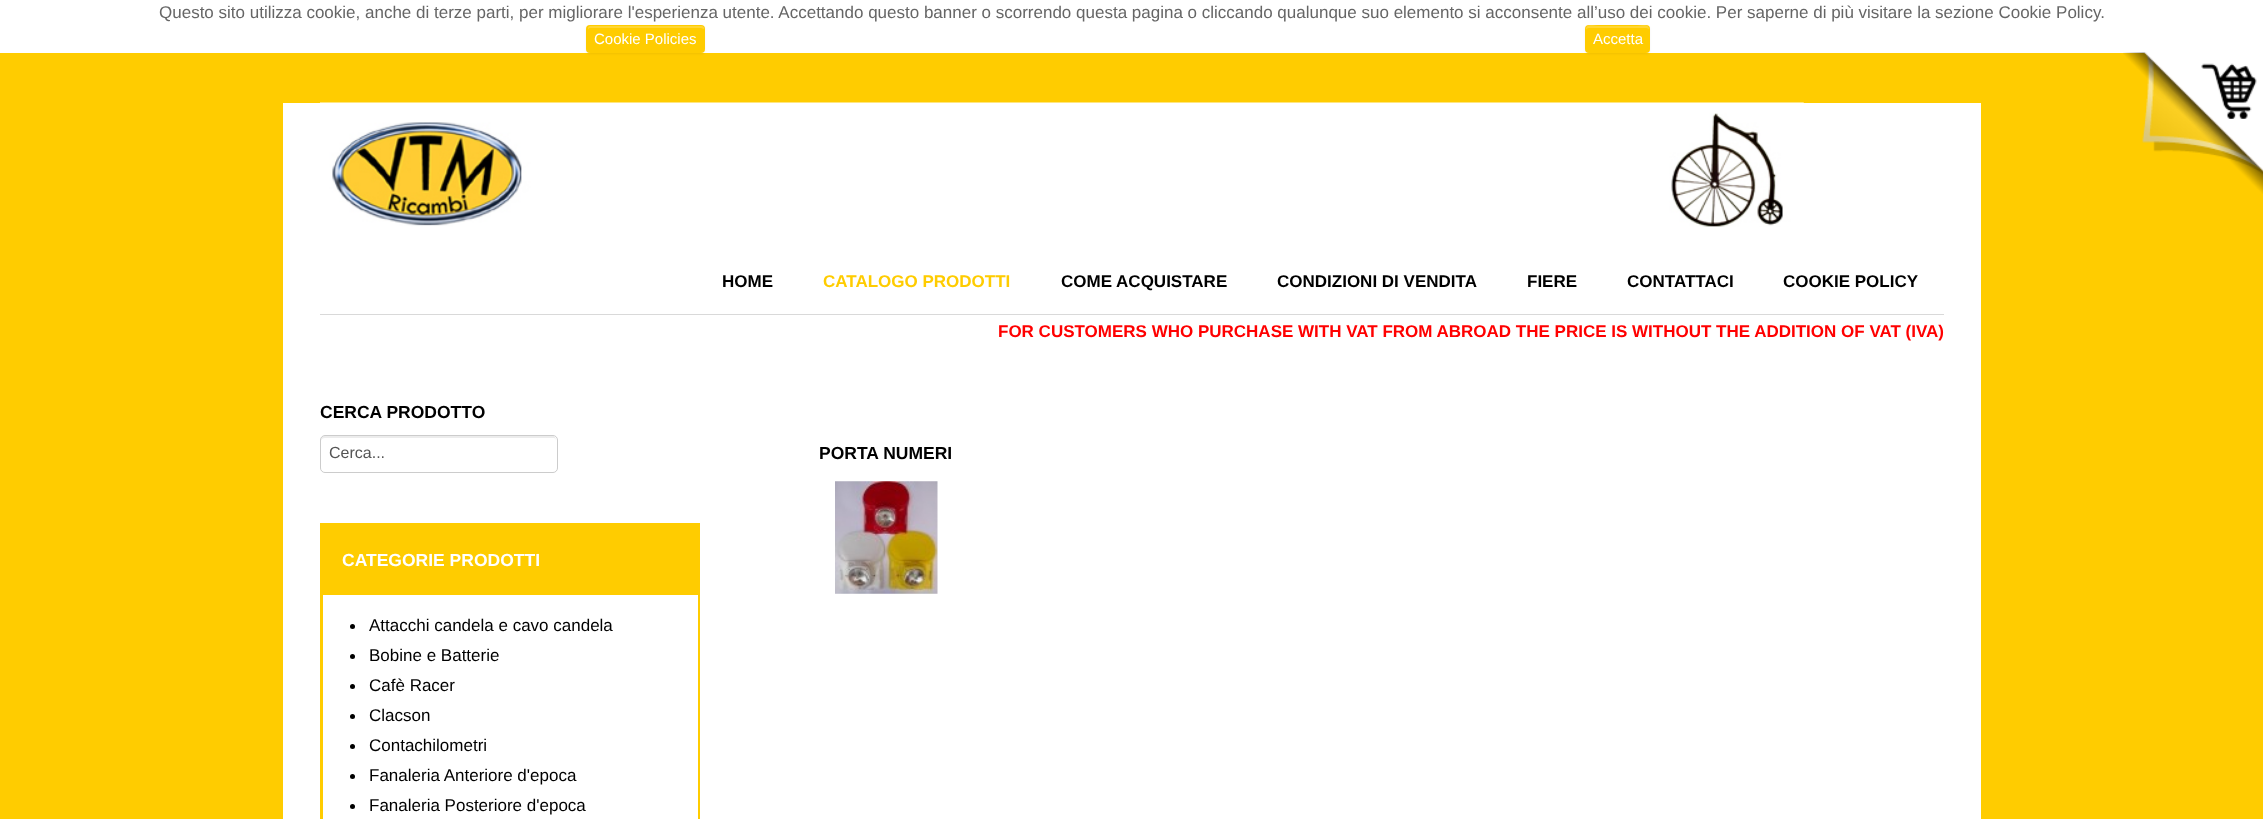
<!DOCTYPE html>
<meta charset="utf-8">
<style>body { margin: 0 } canvas { display: block }</style>
<canvas id="canvas" width="2263" height="819"></canvas>
<script type="module">
  const canvas = document.getElementById("canvas");
  const g = canvas.getContext("2d");
  g.miterLimit = 4;
  g.fontKerning = "normal";
  function drawText(s, x, y, [font, color]) {
    g.font = font;
    g.fillStyle = color;
    g.fillText(s, x, y);
  }
  function fillBox(x, y, w, h, color) {
    g.fillStyle = color;
    g.fillRect(x, y, w, h);
  }
  function fillRounded(x, y, w, h, r, color) {
    g.fillStyle = color;
    g.beginPath();
    g.roundRect(x, y, w, h, r);
    g.fill();
  }
  async function drawPicture(src, x, y, w, h) {
    const img = new Image();
    img.src = src;
    await img.decode();
    g.drawImage(img, x, y, w, h);
  }

  const s1 = ["17px Liberation Sans", "#666666"];
  const s2 = ["15px Liberation Sans", "#FFFFFF"];
  const s3 = ["bold 17px Liberation Sans", "#000000"];
  const s4 = ["bold 17px Liberation Sans", "#FFCC00"];
  const s5 = ["bold 17px Liberation Sans", "#FF0000"];
  const s6 = ["bold 17.5px Liberation Sans", "#000000"];
  const s7 = ["16px Liberation Sans", "#555555"];
  const s8 = ["bold 17.5px Liberation Sans", "#FFFFFF"];
  const s9 = ["17px Liberation Sans", "#000000"];

  fillBox(0, 0, 2263, 819, "#FFCC00");
  fillBox(0, 0, 2263, 53, "#FFFFFF");
  drawText("Questo sito utilizza cookie, anche di terze parti, per migliorare l'esperienza utente. Accettando questo banner o scorrendo questa pagina o cliccando qualunque suo elemento si acconsente all’uso dei cookie. Per saperne di più visitare la sezione Cookie Policy.", 159, 18, s1);
  g.fillStyle = "rgba(0, 0, 0, 0.05)";
  g.filter = "blur(1px)";
  g.beginPath();
  g.roundRect(586, 26, 119, 28, 4);
  g.fill();
  g.filter = "none";
  fillRounded(586, 25, 119, 28, 4, "#FFCC00");
  g.fillStyle = "#FFD633";
  g.beginPath();
  g.moveTo(590, 28);
  g.lineTo(701, 28);
  g.lineTo(704, 29);
  g.lineTo(704, 30);
  g.lineTo(704, 28);
  g.bezierCurveTo(704, 27, 703, 26, 702, 26);
  g.lineTo(590, 26);
  g.bezierCurveTo(589, 26, 588, 27, 588, 28);
  g.lineTo(588, 30);
  g.bezierCurveTo(588, 29, 589, 28, 590, 28);
  g.closePath();
  g.fill();
  drawText("Cookie Policies", 594, 44, s2);
  g.fillStyle = "rgba(0, 0, 0, 0.05)";
  g.filter = "blur(1px)";
  g.beginPath();
  g.roundRect(1585, 26, 65, 28, 4);
  g.fill();
  g.filter = "none";
  fillRounded(1585, 25, 65, 28, 4, "#FFCC00");
  g.fillStyle = "#FFD633";
  g.beginPath();
  g.moveTo(1589, 28);
  g.lineTo(1646, 28);
  g.bezierCurveTo(1648, 28, 1649, 29, 1649, 30);
  g.bezierCurveTo(1649, 23, 1642, 26, 1637, 26);
  g.lineTo(1598, 26);
  g.bezierCurveTo(1593, 26, 1586, 23, 1586, 30);
  g.bezierCurveTo(1586, 29, 1587, 28, 1589, 28);
  g.closePath();
  g.fill();
  drawText("Accetta", 1593, 44, s2);
  await drawPicture("pic1.png", 2123, 52, 140, 142);
  fillBox(283, 103, 1698, 716, "#FFFFFF");
  g.fillStyle = "#D9D9D9";
  g.beginPath();
  g.moveTo(320, 314);
  g.lineTo(320, 315);
  g.lineTo(1944, 315);
  g.lineTo(1944, 104);
  g.lineTo(1944, 314);
  g.closePath();
  g.fill();
  await drawPicture("pic2.png", 320, 102, 1484, 125);
  drawText("HOME", 722, 287, s3);
  drawText("CATALOGO PRODOTTI", 823, 287, s4);
  drawText("COME ACQUISTARE", 1061, 287, s3);
  drawText("CONDIZIONI DI VENDITA", 1277, 287, s3);
  drawText("FIERE", 1527, 287, s3);
  drawText("CONTATTACI", 1627, 287, s3);
  drawText("COOKIE POLICY", 1783, 287, s3);
  drawText("FOR CUSTOMERS WHO PURCHASE WITH VAT FROM ABROAD THE PRICE IS WITHOUT THE ADDITION OF VAT (IVA)", 998, 337, s5);
  drawText("CERCA PRODOTTO", 320, 418, s6);
  g.fillStyle = "#ECECEC";
  g.beginPath();
  g.moveTo(325, 438);
  g.lineTo(554, 438);
  g.lineTo(556, 439);
  g.lineTo(556, 441);
  g.bezierCurveTo(556, 438, 555, 436, 552, 436);
  g.lineTo(325, 436);
  g.bezierCurveTo(322, 436, 321, 438, 321, 441);
  g.bezierCurveTo(321, 439, 323, 438, 325, 438);
  g.closePath();
  g.fill();
  g.beginPath();
  g.roundRect(320.5, 435.5, 237, 37, 4.5);
  g.strokeStyle = "#CCCCCC";
  g.stroke();
  drawText("Cerca...", 329, 458, s7);
  g.strokeStyle = "#FFCC00";
  g.lineWidth = 3;
  g.strokeRect(321.5, 524.5, 377, 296);
  fillBox(323, 526, 374, 69, "#FFCC00");
  drawText("CATEGORIE PRODOTTI", 342, 566, s8);
  fillBox(697, 595, 1, 224, "#FFFFFF");
  g.fillStyle = "#000000";
  g.beginPath();
  g.arc(352.5, 626.5, 2.5, 0, Math.PI * 2);
  g.fill();
  drawText("Attacchi candela e cavo candela", 369, 631, s9);
  g.beginPath();
  g.arc(352.5, 656.5, 2.5, 0, Math.PI * 2);
  g.fill();
  drawText("Bobine e Batterie", 369, 661, s9);
  g.beginPath();
  g.arc(352.5, 686.5, 2.5, 0, Math.PI * 2);
  g.fill();
  drawText("Cafè Racer", 369, 691, s9);
  g.beginPath();
  g.arc(352.5, 716.5, 2.5, 0, Math.PI * 2);
  g.fill();
  drawText("Clacson", 369, 721, s9);
  g.beginPath();
  g.arc(352.5, 746.5, 2.5, 0, Math.PI * 2);
  g.fill();
  drawText("Contachilometri", 369, 751, s9);
  g.beginPath();
  g.arc(352.5, 776.5, 2.5, 0, Math.PI * 2);
  g.fill();
  drawText("Fanaleria Anteriore d'epoca", 369, 781, s9);
  g.beginPath();
  g.arc(352.5, 806.5, 2.5, 0, Math.PI * 2);
  g.fill();
  drawText("Fanaleria Posteriore d'epoca", 369, 811, s9);
  drawText("PORTA NUMERI", 819, 459, s6);
  await drawPicture("pic3.png", 835, 481, 103, 113);
</script>
